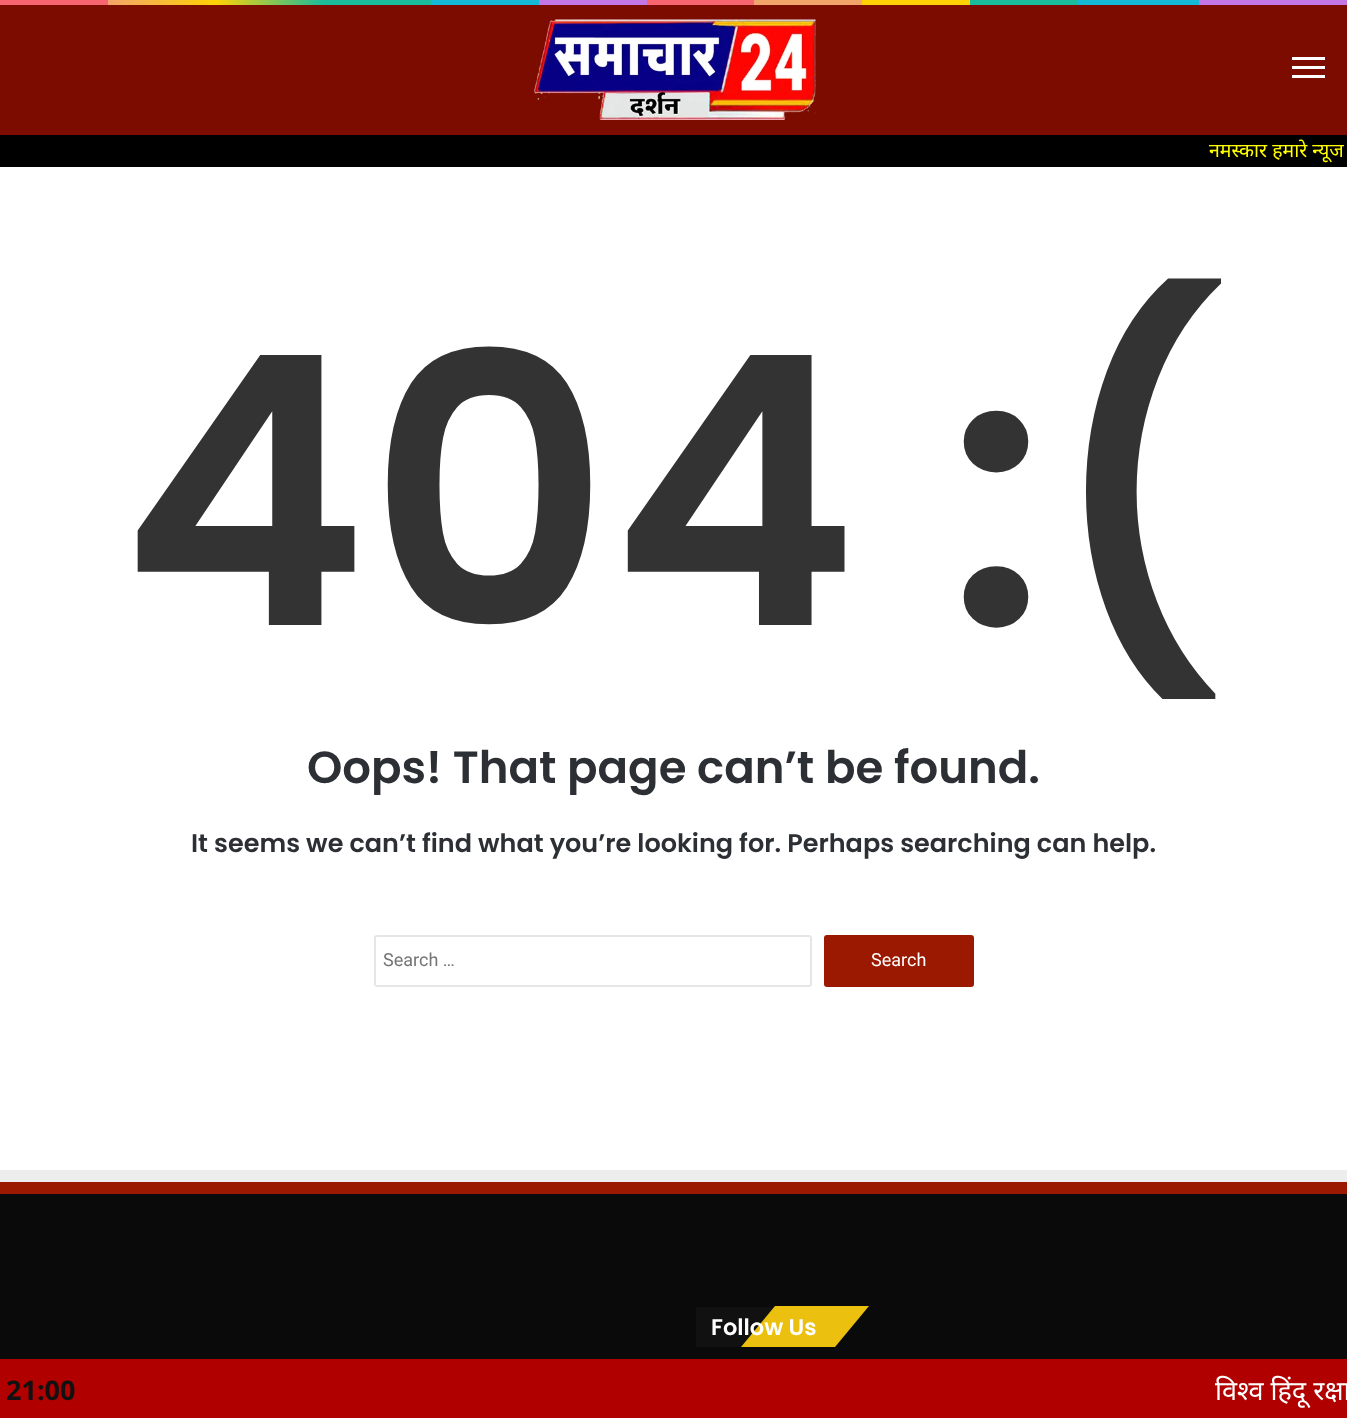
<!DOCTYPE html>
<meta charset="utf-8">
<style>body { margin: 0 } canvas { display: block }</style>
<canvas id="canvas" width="1347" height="1418"></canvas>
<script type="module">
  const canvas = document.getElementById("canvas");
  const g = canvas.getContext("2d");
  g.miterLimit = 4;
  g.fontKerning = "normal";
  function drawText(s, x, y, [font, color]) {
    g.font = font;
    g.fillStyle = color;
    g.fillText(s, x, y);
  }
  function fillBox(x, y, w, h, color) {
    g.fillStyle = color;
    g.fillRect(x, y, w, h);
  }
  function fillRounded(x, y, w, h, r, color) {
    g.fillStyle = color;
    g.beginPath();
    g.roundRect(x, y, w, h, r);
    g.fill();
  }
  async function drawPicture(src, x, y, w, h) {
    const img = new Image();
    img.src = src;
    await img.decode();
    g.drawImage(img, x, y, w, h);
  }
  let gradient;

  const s1 = ["19.5px Noto Sans", "#FFFF00"];
  const s2 = ["600 375px Poppins", "#333333"];
  const s3 = ["600 45px Poppins", "#2C2F34"];
  const s4 = ["600 25.5px Poppins", "#2C2F34"];
  const s5 = ["18px Roboto", "#757575"];
  const s6 = ["18px Roboto", "#FFFFFF"];
  const s7 = ["600 22.5px Poppins", "#FFFFFF"];
  const s8 = ["bold 27px Open Sans", "#111111"];
  const s9 = ["27px Noto Sans", "#FFFFFF"];

  fillBox(0, 0, 1347, 1418, "#FFFFFF");
  gradient = g.createLinearGradient(0, 2.3, 1347, 2.2);
  gradient.addColorStop(0, "#F76570");
  gradient.addColorStop(0.08, "#F76570");
  gradient.addColorStop(0.08, "#F3A46B");
  gradient.addColorStop(0.16, "#FFD205");
  gradient.addColorStop(0.24, "#1BBC9B");
  gradient.addColorStop(0.32, "#1BBC9B");
  gradient.addColorStop(0.32, "#14B9D5");
  gradient.addColorStop(0.4, "#14B9D5");
  gradient.addColorStop(0.4, "#C377E4");
  gradient.addColorStop(0.48, "#C377E4");
  gradient.addColorStop(0.48, "#F76570");
  gradient.addColorStop(0.56, "#F76570");
  gradient.addColorStop(0.56, "#F3A46B");
  gradient.addColorStop(0.64, "#F3A46B");
  gradient.addColorStop(0.64, "#FFD205");
  gradient.addColorStop(0.72, "#FFD205");
  gradient.addColorStop(0.72, "#1BBC9B");
  gradient.addColorStop(0.8, "#1BBC9B");
  gradient.addColorStop(0.8, "#14B9D5");
  gradient.addColorStop(0.89, "#14B9D5");
  gradient.addColorStop(0.89, "#C377E4");
  gradient.addColorStop(1, "#C377E4");
  g.fillStyle = gradient;
  g.fillRect(0, 0, 1347, 5);
  fillBox(0, 5, 1347, 130, "#7C0C00");
  await drawPicture("pic1.png", 534, 19, 282, 101);
  fillBox(1292, 66, 33, 3, "#FFFFFF");
  fillBox(1292, 57, 33, 3, "#FFFFFF");
  fillBox(1292, 75, 33, 3, "#FFFFFF");
  fillBox(0, 135, 1347, 32, "#000000");
  drawText("नमस्कार हमारे न्यूज", 1209, 157, s1);
  drawText("404 :(", 120, 625, s2);
  drawText("Oops! That page can’t be found.", 307, 783, s3);
  drawText("It seems we can’t find what you’re looking for. Perhaps searching can help.", 191, 852, s4);
  g.beginPath();
  g.roundRect(375, 936, 436, 50, 2);
  g.strokeStyle = "#E6E6E6";
  g.lineWidth = 2;
  g.stroke();
  drawText("Search …", 383, 966, s5);
  fillRounded(824, 935, 150, 52, 3, "#9B1900");
  drawText("Search", 871, 966, s6);
  fillBox(0, 1194, 1347, 165, "#0A0A0A");
  fillBox(0, 1170, 1347, 12, "#EDEDED");
  fillBox(0, 1182, 1347, 12, "#9B1900");
  fillBox(696, 1307, 79, 40, "#111111");
  g.fillStyle = "#ECC00F";
  g.beginPath();
  g.moveTo(775, 1306);
  g.lineTo(869, 1306);
  g.lineTo(835, 1347);
  g.lineTo(741, 1347);
  g.closePath();
  g.fill();
  drawText("Follow Us", 711, 1335, s7);
  fillBox(0, 1359, 1347, 59, "#B10000");
  drawText("21:00", 6, 1400, s8);
  drawText("विश्व हिंदू रक्षा", 1215, 1400, s9);
</script>
